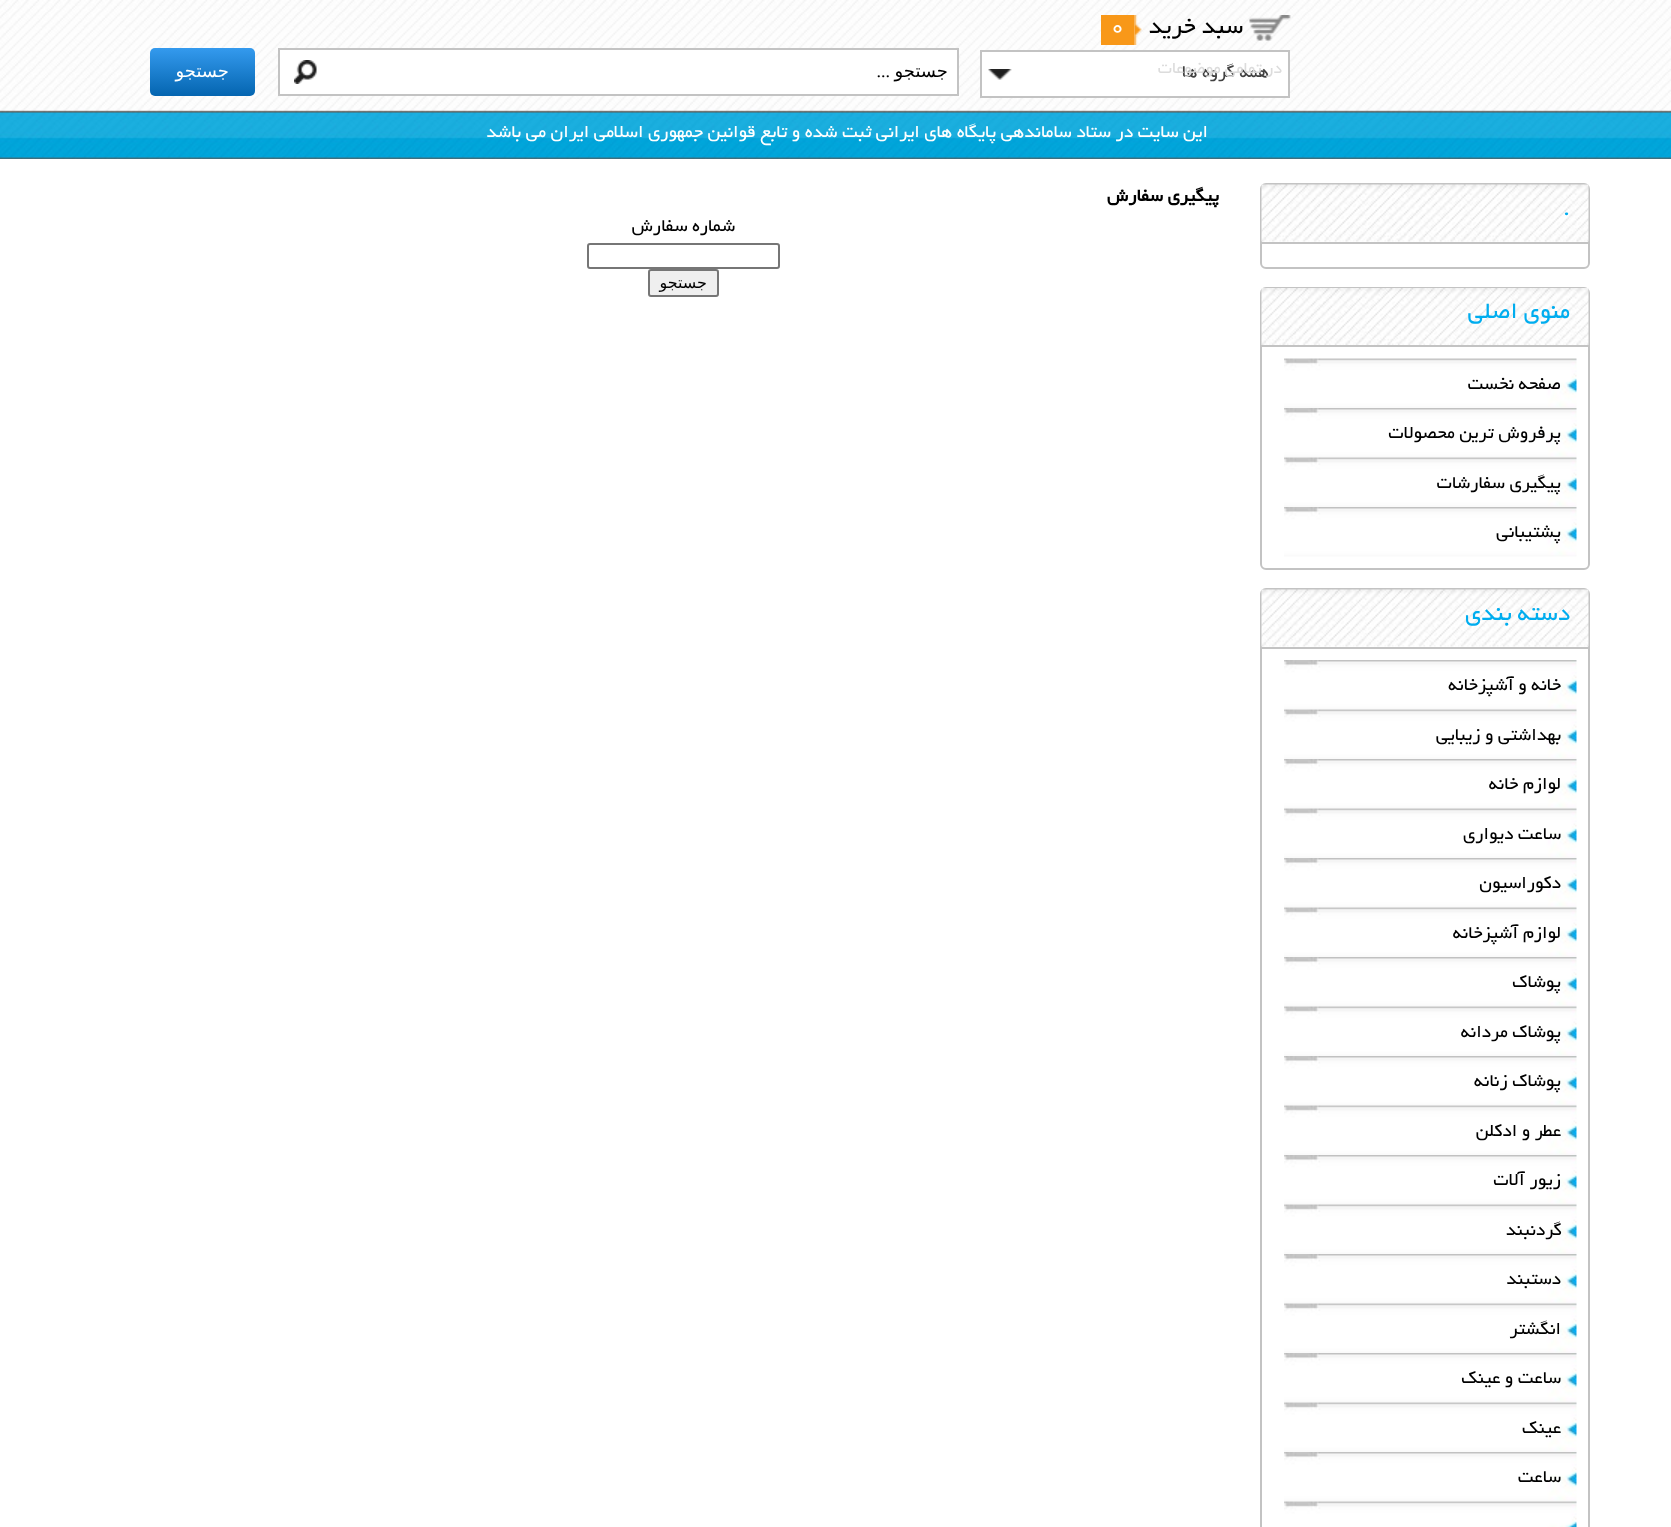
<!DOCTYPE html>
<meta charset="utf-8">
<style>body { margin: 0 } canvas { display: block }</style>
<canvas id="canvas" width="1671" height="1527"></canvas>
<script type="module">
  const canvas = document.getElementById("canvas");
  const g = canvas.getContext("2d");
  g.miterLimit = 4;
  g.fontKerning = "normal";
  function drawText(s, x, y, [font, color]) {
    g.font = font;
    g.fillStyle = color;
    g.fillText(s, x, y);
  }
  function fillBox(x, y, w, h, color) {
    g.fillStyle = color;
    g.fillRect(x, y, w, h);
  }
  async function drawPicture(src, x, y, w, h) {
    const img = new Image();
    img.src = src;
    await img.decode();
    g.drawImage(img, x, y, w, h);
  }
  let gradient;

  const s1 = ["25.5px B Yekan", "#000000"];
  const s2 = ["25.5px B Yekan", "#FFFFFF"];
  const s3 = ["19.5px B Yekan", "#414141"];
  const s4 = ["18px B Yekan", "#DCDCDC"];
  const s5 = ["18px DejaVu Sans", "#000000"];
  const s6 = ["18px Liberation Serif", "#000000"];
  const s7 = ["18px DejaVu Sans", "#FFFFFF"];
  const s8 = ["19.5px B Yekan", "#FFFFFF"];
  const s9 = ["25.5px B Yekan", "#00ADEF"];
  const s10 = ["19.5px B Yekan", "#000000"];
  const s11 = ["bold 19.5px B Yekan", "#000000"];
  const s12 = ["16px DejaVu Sans", "#000000"];

  fillBox(0, 0, 1671, 1527, "#FFFFFF");
  await drawPicture("pic1.png", 0, 0, 1671, 159);
  await drawPicture("pic2.png", 1249, 15, 42, 26);
  g.direction = "rtl";
  drawText("سبد خرید", 1243, 33, s1);
  fillBox(1101, 15, 33, 30, "#F89819");
  await drawPicture("pic3.png", 1134, 15, 8, 30);
  g.direction = "ltr";
  drawText("0", 1110, 33, s2);
  fillBox(982, 52, 306, 44, "#FFFFFF");
  await drawPicture("pic4.png", 988, 69, 24, 11);
  g.strokeStyle = "#C3C3C3";
  g.lineWidth = 2;
  g.strokeRect(981, 51, 308, 46);
  g.direction = "rtl";
  drawText("همه گروه ها", 1269, 77, s3);
  drawText("در تمامی موضوعات", 1282, 73, s4);
  fillBox(280, 50, 677, 44, "#FFFFFF");
  await drawPicture("pic5.png", 294, 60, 23, 24);
  g.strokeRect(279, 49, 679, 46);
  drawText("جستجو", 948, 77, s5);
  drawText("...", 890, 77, s6);
  gradient = g.createLinearGradient(203, 48, 203, 96);
  gradient.addColorStop(0, "#349AEE");
  gradient.addColorStop(1, "#0465B0");
  g.fillStyle = gradient;
  g.beginPath();
  g.roundRect(150, 48, 105, 48, 5);
  g.fill();
  drawText("جستجو", 229, 77, s7);
  drawText("این سایت در ستاد ساماندهی پایگاه های ایرانی ثبت شده و تابع قوانین جمهوری اسلامی ایران می باشد", 1208, 137, s8);
  g.beginPath();
  g.roundRect(1261, 184, 328, 84, 5);
  g.stroke();
  await drawPicture("pic6.png", 1261, 184, 328, 58);
  fillBox(1262, 242, 327, 2, "#C3C3C3");
  g.direction = "ltr";
  drawText(".", 1563, 215, s9);
  g.beginPath();
  g.roundRect(1261, 288, 328, 281, 5);
  g.stroke();
  await drawPicture("pic7.png", 1261, 288, 328, 57);
  fillBox(1262, 345, 327, 2, "#C3C3C3");
  g.direction = "rtl";
  drawText("منوی اصلی", 1570, 318, s9);
  await drawPicture("pic8.png", 1284, 358, 293, 50);
  drawText("صفحه نخست", 1561, 389, s10);
  await drawPicture("pic9.png", 1284, 408, 293, 50);
  drawText("پرفروش ترین محصولات", 1561, 438, s10);
  await drawPicture("pic10.png", 1284, 457, 293, 50);
  drawText("پیگیری سفارشات", 1561, 488, s10);
  await drawPicture("pic9.png", 1284, 507, 293, 50);
  drawText("پشتیبانی", 1561, 537, s10);
  g.beginPath();
  g.roundRect(1261, 589, 328, 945, 5);
  g.stroke();
  await drawPicture("pic11.png", 1261, 589, 328, 58);
  fillBox(1262, 647, 327, 2, "#C3C3C3");
  drawText("دسته بندی", 1570, 620, s9);
  await drawPicture("pic9.png", 1284, 660, 293, 50);
  drawText("خانه و آشپزخانه", 1561, 690, s10);
  await drawPicture("pic10.png", 1284, 709, 293, 50);
  drawText("بهداشتی و زیبایی", 1561, 740, s10);
  await drawPicture("pic9.png", 1284, 759, 293, 50);
  drawText("لوازم خانه", 1561, 789, s10);
  await drawPicture("pic10.png", 1284, 808, 293, 50);
  drawText("ساعت دیواری", 1561, 839, s10);
  await drawPicture("pic9.png", 1284, 858, 293, 50);
  drawText("دکوراسیون", 1561, 888, s10);
  await drawPicture("pic10.png", 1284, 907, 293, 50);
  drawText("لوازم آشپزخانه", 1561, 938, s10);
  await drawPicture("pic9.png", 1284, 957, 293, 50);
  drawText("پوشاک", 1561, 987, s10);
  await drawPicture("pic10.png", 1284, 1006, 293, 50);
  drawText("پوشاک مردانه", 1561, 1037, s10);
  await drawPicture("pic9.png", 1284, 1056, 293, 50);
  drawText("پوشاک زنانه", 1561, 1086, s10);
  await drawPicture("pic10.png", 1284, 1105, 293, 50);
  drawText("عطر و ادکلن", 1561, 1136, s10);
  await drawPicture("pic9.png", 1284, 1155, 293, 50);
  drawText("زیور آلات", 1561, 1185, s10);
  await drawPicture("pic10.png", 1284, 1204, 293, 50);
  drawText("گردنبند", 1562, 1235, s10);
  await drawPicture("pic9.png", 1284, 1254, 293, 50);
  drawText("دستبند", 1561, 1284, s10);
  await drawPicture("pic10.png", 1284, 1303, 293, 50);
  drawText("انگشتر", 1561, 1334, s10);
  await drawPicture("pic9.png", 1284, 1353, 293, 50);
  drawText("ساعت و عینک", 1561, 1383, s10);
  await drawPicture("pic10.png", 1284, 1402, 293, 50);
  drawText("عینک", 1561, 1433, s10);
  await drawPicture("pic9.png", 1284, 1452, 293, 50);
  drawText("ساعت", 1561, 1482, s10);
  await drawPicture("pic12.png", 1284, 1501, 293, 26);
  drawText("پیگیری سفارش", 1219, 201, s11);
  drawText("شماره سفارش", 735, 231, s10);
  g.beginPath();
  g.roundRect(588, 244, 191, 24, 2);
  g.strokeStyle = "#767676";
  g.stroke();
  g.fillStyle = "#EFEFEF";
  g.beginPath();
  g.roundRect(649, 270, 69, 26, 2);
  g.fill();
  g.stroke();
  drawText("جستجو", 707, 288, s12);
</script>
